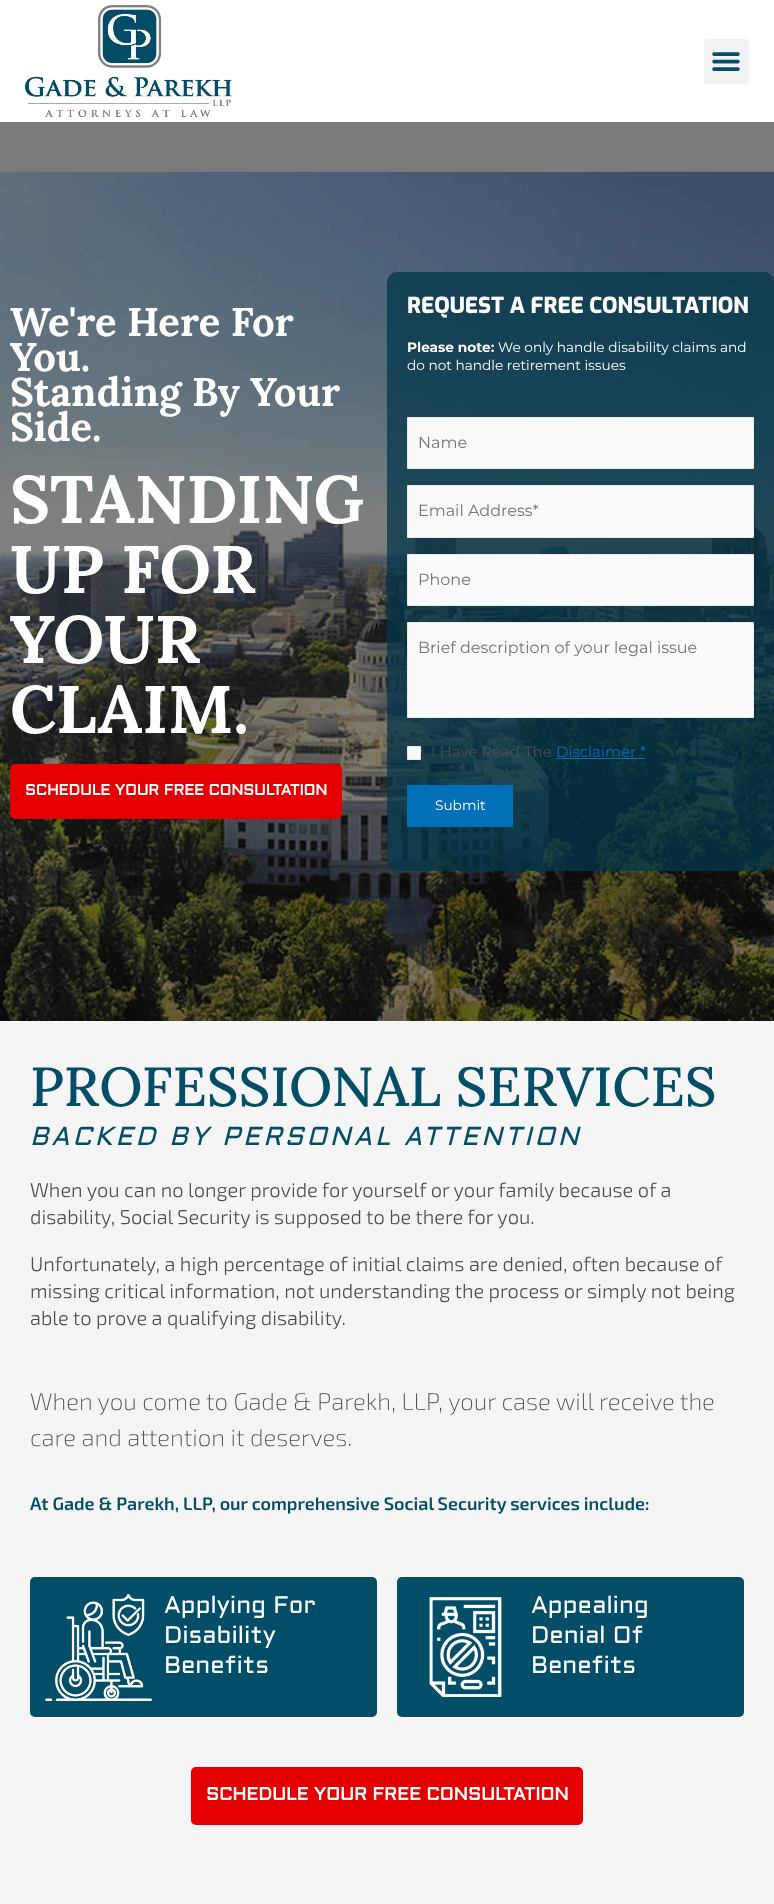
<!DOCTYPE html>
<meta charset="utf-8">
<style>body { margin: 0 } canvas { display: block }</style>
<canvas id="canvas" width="774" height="1904"></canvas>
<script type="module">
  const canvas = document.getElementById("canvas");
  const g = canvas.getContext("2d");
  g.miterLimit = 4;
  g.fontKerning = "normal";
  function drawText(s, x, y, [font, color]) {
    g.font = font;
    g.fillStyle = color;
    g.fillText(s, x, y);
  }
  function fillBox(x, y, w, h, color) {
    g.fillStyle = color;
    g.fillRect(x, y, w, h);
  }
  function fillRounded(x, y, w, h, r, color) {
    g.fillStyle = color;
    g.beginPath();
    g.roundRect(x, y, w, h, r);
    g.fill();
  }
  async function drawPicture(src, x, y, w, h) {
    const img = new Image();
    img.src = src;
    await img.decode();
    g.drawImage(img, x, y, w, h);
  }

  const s1 = ["bold 40px Lora", "#FFFFFF"];
  const s2 = ["bold 67px Lora", "#FFFFFF"];
  const s3 = ["bold 15px Aldrich", "#FFFFFF"];
  const s4 = ["800 22px Exo", "#FFFFFF"];
  const s5 = ["bold 13.7px Montserrat", "#FFFFFF"];
  const s6 = ["13.7px Montserrat", "#FFFFFF"];
  const s7 = ["16px Montserrat", "#757575"];
  const s8 = ["15px Montserrat", "#4B4F58"];
  const s9 = ["15px Montserrat", "#0170B9"];
  const s10 = ["500 55px Lora", "#024D68"];
  const s11 = ["italic 26px Aldrich", "#024D68"];
  const s12 = ["300 20px 'Exo 2'", "#4B4A4A"];
  const s13 = ["200 24px 'Exo 2'", "#4B4A4A"];
  const s14 = ["600 18px 'Exo 2'", "#024D68"];
  const s15 = ["24px Aldrich", "#FFFFFF"];
  const s16 = ["bold 18px Aldrich", "#FFFFFF"];

  fillBox(0, 0, 774, 1904, "#F5F5F5");
  fillBox(0, 122, 774, 50, "#7B7B7B");
  fillBox(0, 0, 774, 122, "#FFFFFF");
  await drawPicture("pic1.png", 25, 5, 207, 113);
  fillRounded(704, 39, 45, 45, 3, "#F2F2F2");
  await drawPicture("pic2.png", 712, 52, 28, 19);
  await drawPicture("pic3.png", 0, 171, 774, 850);
  drawText("We're Here For", 10, 336, s1);
  drawText("You.", 10, 371, s1);
  drawText("Standing By Your", 10, 406, s1);
  drawText("Side.", 10, 441, s1);
  drawText("STANDING", 10, 523, s2);
  drawText("UP FOR", 10, 593, s2);
  drawText("YOUR", 10, 663, s2);
  drawText("CLAIM.", 10, 733, s2);
  fillRounded(10, 764, 332, 55, 5, "#E40000");
  drawText("SCHEDULE YOUR FREE CONSULTATION", 25, 795, s3);
  fillRounded(387, 272, 387, 599, 10, "rgba(2, 55, 74, 0.75)");
  drawText("REQUEST A FREE CONSULTATION", 407, 313, s4);
  drawText("Please note:", 407, 352, s5);
  drawText("We only handle disability claims and", 498, 352, s6);
  drawText("do not handle retirement issues", 407, 370, s6);
  g.fillStyle = "#FAFAFA";
  g.beginPath();
  g.rect(407.5, 417.5, 346, 51);
  g.fill();
  g.strokeStyle = "#EAEAEA";
  g.stroke();
  drawText("Name", 418, 448, s7);
  g.fillStyle = "#FAFAFA";
  g.beginPath();
  g.rect(407.5, 485.5, 346, 52);
  g.fill();
  g.stroke();
  drawText("Email Address*", 418, 516, s7);
  g.fillStyle = "#FAFAFA";
  g.beginPath();
  g.rect(407.5, 554.5, 346, 51);
  g.fill();
  g.stroke();
  drawText("Phone", 418, 585, s7);
  g.fillStyle = "#FAFAFA";
  g.beginPath();
  g.rect(407.5, 622.5, 346, 95);
  g.fill();
  g.stroke();
  drawText("Brief description of your legal issue", 418, 653, s7);
  g.fillStyle = "#FAFAFA";
  g.beginPath();
  g.rect(407.5, 746.5, 13, 13);
  g.fill();
  g.stroke();
  drawText("I Have Read The", 431, 757, s8);
  drawText("Disclaimer *", 556, 757, s9);
  fillBox(556, 758, 89, 1, "#0170B9");
  fillBox(407, 785, 106, 42, "#0170B9");
  drawText("Submit", 435, 810, s6);
  drawText("PROFESSIONAL SERVICES", 30, 1106, s10);
  g.letterSpacing = "3px";
  drawText("BACKED BY PERSONAL ATTENTION", 30, 1145, s11);
  g.letterSpacing = "0px";
  drawText("When you can no longer provide for yourself or your family because of a", 30, 1197, s12);
  drawText("disability, Social Security is supposed to be there for you.", 30, 1224, s12);
  drawText("Unfortunately, a high percentage of initial claims are denied, often because of", 30, 1271, s12);
  drawText("missing critical information, not understanding the process or simply not being", 30, 1298, s12);
  drawText("able to prove a qualifying disability.", 30, 1325, s12);
  drawText("When you come to Gade & Parekh, LLP, your case will receive the", 30, 1410, s13);
  drawText("care and attention it deserves.", 30, 1446, s13);
  drawText("At Gade & Parekh, LLP, our comprehensive Social Security services include:", 30, 1510, s14);
  fillRounded(30, 1577, 347, 140, 5, "#024E68");
  await drawPicture("pic4.png", 45, 1594, 107, 107);
  drawText("Applying For", 164, 1613, s15);
  drawText("Disability", 164, 1643, s15);
  drawText("Benefits", 164, 1673, s15);
  fillRounded(397, 1577, 347, 140, 5, "#024E68");
  await drawPicture("pic5.png", 429, 1597, 73, 100);
  drawText("Appealing", 531, 1613, s15);
  drawText("Denial Of", 531, 1643, s15);
  drawText("Benefits", 531, 1673, s15);
  fillRounded(191, 1767, 392, 58, 5, "#E40000");
  drawText("SCHEDULE YOUR FREE CONSULTATION", 206, 1800, s16);
</script>
